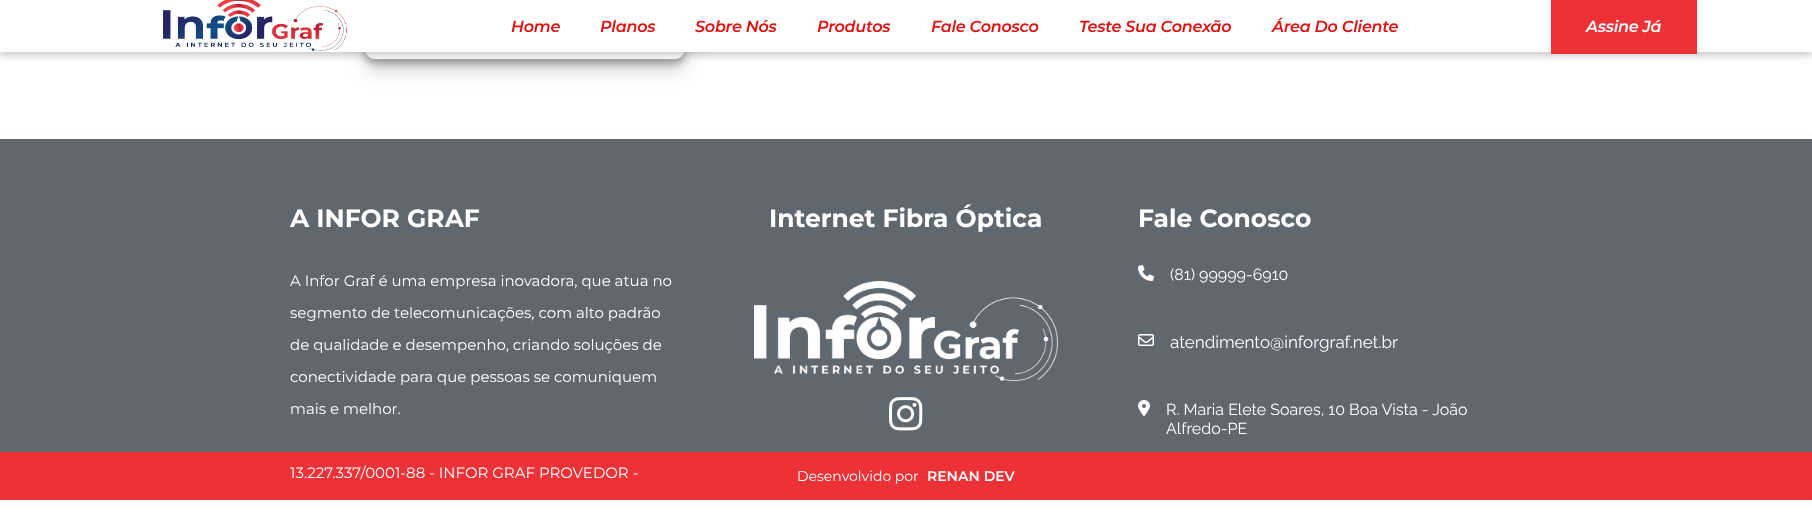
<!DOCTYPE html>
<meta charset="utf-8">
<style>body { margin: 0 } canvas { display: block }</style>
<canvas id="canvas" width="1812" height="521"></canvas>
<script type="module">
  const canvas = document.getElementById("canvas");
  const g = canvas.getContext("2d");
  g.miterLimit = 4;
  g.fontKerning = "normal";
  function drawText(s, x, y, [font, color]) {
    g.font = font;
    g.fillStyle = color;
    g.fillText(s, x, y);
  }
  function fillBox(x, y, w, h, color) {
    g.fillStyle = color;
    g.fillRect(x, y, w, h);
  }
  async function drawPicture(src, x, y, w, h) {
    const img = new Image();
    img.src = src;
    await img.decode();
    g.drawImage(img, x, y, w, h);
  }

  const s1 = ["italic 600 16px Montserrat", "#DF1111"];
  const s2 = ["italic 600 16px Montserrat", "#FFFFFF"];
  const s3 = ["bold 25px Montserrat", "#FFFFFF"];
  const s4 = ["15px Montserrat", "#FFFFFF"];
  const s5 = ["16px Raleway", "#FFFFFF"];
  const s6 = ["17px Raleway", "#FFFFFF"];
  const s7 = ["14px Montserrat", "#FFFFFF"];
  const s8 = ["600 14px Montserrat", "#FFFFFF"];

  fillBox(0, 0, 1812, 521, "#FFFFFF");
  g.save();
  g.beginPath();
  g.moveTo(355, 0);
  g.lineTo(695, 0);
  g.lineTo(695, 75);
  g.lineTo(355, 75);
  g.closePath();
  g.moveTo(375, -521);
  g.lineTo(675, -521);
  g.bezierCurveTo(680.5, -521, 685, -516.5, 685, -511);
  g.lineTo(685, 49);
  g.bezierCurveTo(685, 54.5, 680.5, 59, 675, 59);
  g.lineTo(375, 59);
  g.bezierCurveTo(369.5, 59, 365, 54.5, 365, 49);
  g.lineTo(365, -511);
  g.bezierCurveTo(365, -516.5, 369.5, -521, 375, -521);
  g.closePath();
  g.clip("evenodd");
  g.fillStyle = "rgba(0, 0, 0, 0.23)";
  g.filter = "blur(3px)";
  g.beginPath();
  g.roundRect(365, -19, 320, 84, 10);
  g.fill();
  g.filter = "none";
  g.restore();
  g.save();
  g.beginPath();
  g.moveTo(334, 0);
  g.lineTo(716, 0);
  g.lineTo(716, 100);
  g.lineTo(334, 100);
  g.closePath();
  g.moveTo(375, -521);
  g.lineTo(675, -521);
  g.bezierCurveTo(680.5, -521, 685, -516.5, 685, -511);
  g.lineTo(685, 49);
  g.bezierCurveTo(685, 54.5, 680.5, 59, 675, 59);
  g.lineTo(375, 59);
  g.bezierCurveTo(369.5, 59, 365, 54.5, 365, 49);
  g.lineTo(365, -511);
  g.bezierCurveTo(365, -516.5, 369.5, -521, 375, -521);
  g.closePath();
  g.clip("evenodd");
  g.fillStyle = "rgba(0, 0, 0, 0.19)";
  g.filter = "blur(10px)";
  g.beginPath();
  g.roundRect(365, -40, 320, 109, 10);
  g.fill();
  g.filter = "none";
  g.restore();
  g.fillStyle = "rgba(0, 0, 0, 0.24)";
  g.filter = "blur(4px)";
  g.beginPath();
  g.rect(0, 3, 1812, 52);
  g.fill();
  g.filter = "none";
  fillBox(0, 0, 1812, 52, "#FFFFFF");
  await drawPicture("pic1.png", 163, 0, 184, 51);
  g.letterSpacing = "-0.25px";
  drawText("Home", 511, 32, s1);
  drawText("Planos", 600, 32, s1);
  drawText("Sobre Nós", 695, 32, s1);
  drawText("Produtos", 817, 32, s1);
  drawText("Fale Conosco", 931, 32, s1);
  drawText("Teste Sua Conexão", 1079, 32, s1);
  drawText("Área Do Cliente", 1272, 32, s1);
  fillBox(1551, 0, 146, 54, "#ED3237");
  drawText("Assine Já", 1586, 32, s2);
  fillBox(0, 139, 1812, 313, "#5F686F");
  g.letterSpacing = "0px";
  drawText("A INFOR GRAF", 290, 227, s3);
  drawText("A Infor Graf é uma empresa inovadora, que atua no", 290, 286, s4);
  drawText("segmento de telecomunicações, com alto padrão", 290, 318, s4);
  drawText("de qualidade e desempenho, criando soluções de", 290, 350, s4);
  drawText("conectividade para que pessoas se comuniquem", 290, 382, s4);
  drawText("mais e melhor.", 290, 414, s4);
  fillBox(0, 452, 1812, 48, "#ED3237");
  drawText("13.227.337/0001-88 - INFOR GRAF PROVEDOR -", 290, 478, s4);
  drawText("Internet Fibra Óptica", 769, 227, s3);
  await drawPicture("pic2.png", 754, 281, 304, 100);
  await drawPicture("pic3.png", 889, 397, 34, 34);
  drawText("Fale Conosco", 1138, 227, s3);
  await drawPicture("pic4.png", 1138, 265, 16, 16);
  drawText("(81) 99999-6910", 1170, 280, s5);
  await drawPicture("pic5.png", 1138, 334, 16, 12);
  drawText("atendimento@inforgraf.net.br", 1170, 348, s6);
  await drawPicture("pic6.png", 1138, 400, 12, 16);
  drawText("R. Maria Elete Soares, 10 Boa Vista - João", 1166, 415, s5);
  drawText("Alfredo-PE", 1166, 434, s5);
  drawText("Desenvolvido por", 797, 481, s7);
  drawText("RENAN DEV", 927, 481, s8);
</script>
